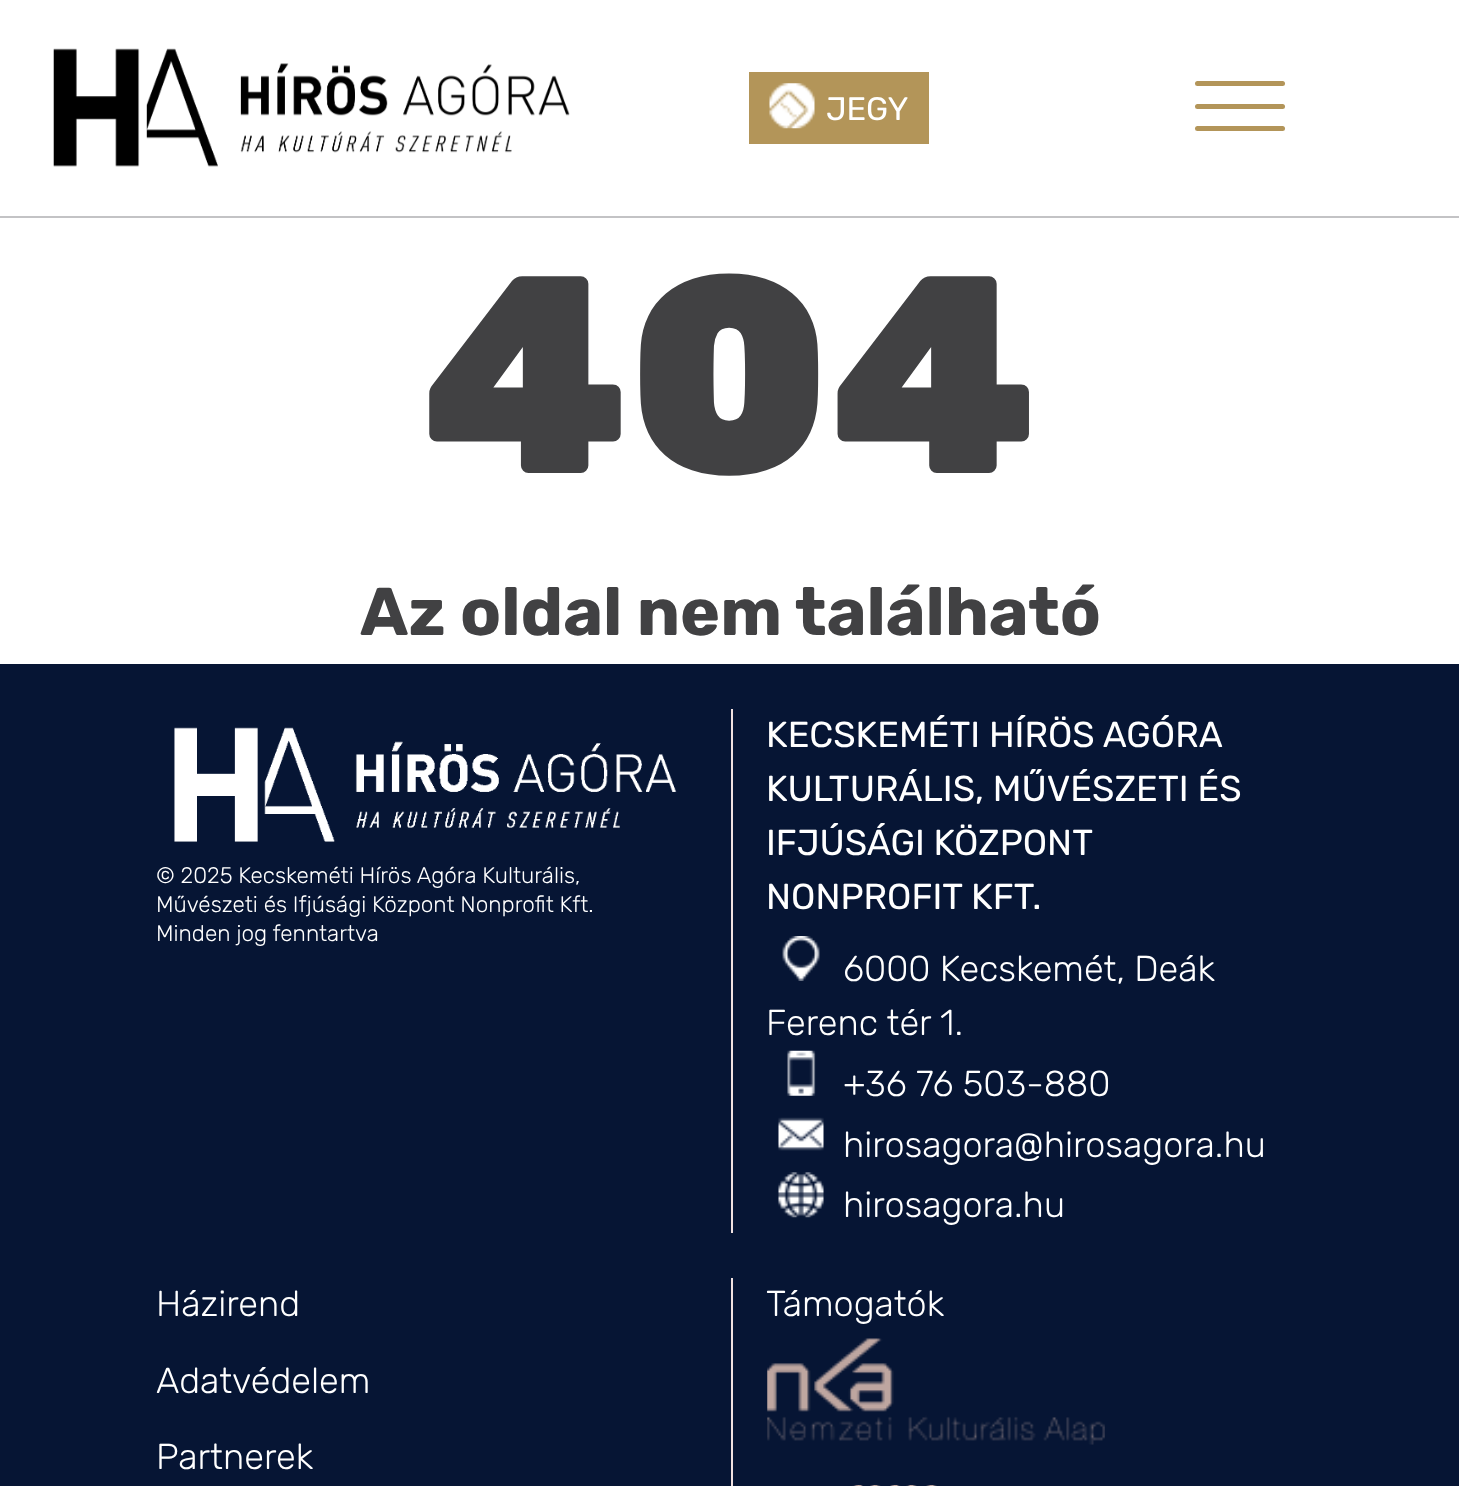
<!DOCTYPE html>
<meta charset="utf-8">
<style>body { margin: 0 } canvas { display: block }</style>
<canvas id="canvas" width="1459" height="1486"></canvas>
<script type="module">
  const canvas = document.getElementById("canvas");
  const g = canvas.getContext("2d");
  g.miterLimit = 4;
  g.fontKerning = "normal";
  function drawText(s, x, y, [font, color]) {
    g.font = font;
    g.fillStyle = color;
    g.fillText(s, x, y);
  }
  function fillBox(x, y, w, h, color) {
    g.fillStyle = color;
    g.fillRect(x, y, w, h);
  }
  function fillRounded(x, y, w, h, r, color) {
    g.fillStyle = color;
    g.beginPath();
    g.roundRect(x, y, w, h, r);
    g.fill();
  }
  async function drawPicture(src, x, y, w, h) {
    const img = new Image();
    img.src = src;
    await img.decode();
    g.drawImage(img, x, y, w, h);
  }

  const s1 = ["32.5px Rubik", "#FFFFFF"];
  const s2 = ["900 281px Rubik", "#414143"];
  const s3 = ["bold 67.5px Rubik", "#414143"];
  const s4 = ["300 22.5px Rubik", "#FFFFFF"];
  const s5 = ["36px Rubik", "#FFFFFF"];
  const s6 = ["300 36px Rubik", "#FFFFFF"];

  fillBox(0, 0, 1459, 1486, "#FFFFFF");
  fillBox(0, 216, 1459, 2, "#C3C3C5");
  await drawPicture("pic1.png", 53, 48, 517, 119);
  fillBox(749, 72, 180, 72, "#B39559");
  await drawPicture("pic2.png", 769, 83, 46, 46);
  drawText("JEGY", 826, 120, s1);
  fillRounded(1195, 81, 90, 5, 2.5, "#B39559");
  fillRounded(1195, 104, 90, 5, 2.5, "#B39559");
  fillRounded(1195, 126, 90, 5, 2.5, "#B39559");
  drawText("404", 422, 473, s2);
  drawText("Az oldal nem található", 360, 635, s3);
  fillBox(0, 664, 1459, 822, "#061534");
  await drawPicture("pic3.png", 174, 727, 503, 115);
  drawText("© 2025 Kecskeméti Hírös Agóra Kulturális,", 156, 883, s4);
  drawText("Művészeti és Ifjúsági Központ Nonprofit Kft.", 156, 912, s4);
  drawText("Minden jog fenntartva", 156, 941, s4);
  fillBox(731, 709, 2, 524, "#F0E1E1");
  drawText("KECSKEMÉTI HÍRÖS AGÓRA", 766, 747, s5);
  drawText("KULTURÁLIS, MŰVÉSZETI ÉS", 766, 801, s5);
  drawText("IFJÚSÁGI KÖZPONT", 766, 855, s5);
  drawText("NONPROFIT KFT.", 766, 909, s5);
  await drawPicture("pic4.png", 782, 936, 38, 45);
  drawText("6000 Kecskemét, Deák", 843, 981, s6);
  drawText("Ferenc tér 1.", 766, 1035, s6);
  await drawPicture("pic5.png", 787, 1050, 29, 46);
  drawText("+36 76 503-880", 843, 1096, s6);
  await drawPicture("pic6.png", 778, 1117, 46, 34);
  drawText("hirosagora@hirosagora.hu", 843, 1157, s6);
  await drawPicture("pic7.png", 778, 1172, 46, 46);
  drawText("hirosagora.hu", 843, 1217, s6);
  drawText("Házirend", 156, 1316, s6);
  drawText("Adatvédelem", 156, 1393, s6);
  drawText("Partnerek", 156, 1469, s6);
  fillBox(731, 1278, 2, 208, "#F0E1E1");
  drawText("Támogatók", 766, 1316, s6);
  await drawPicture("pic8.png", 767, 1338, 338, 107);
  await drawPicture("pic9.png", 852, 1485, 85, 1);
</script>
